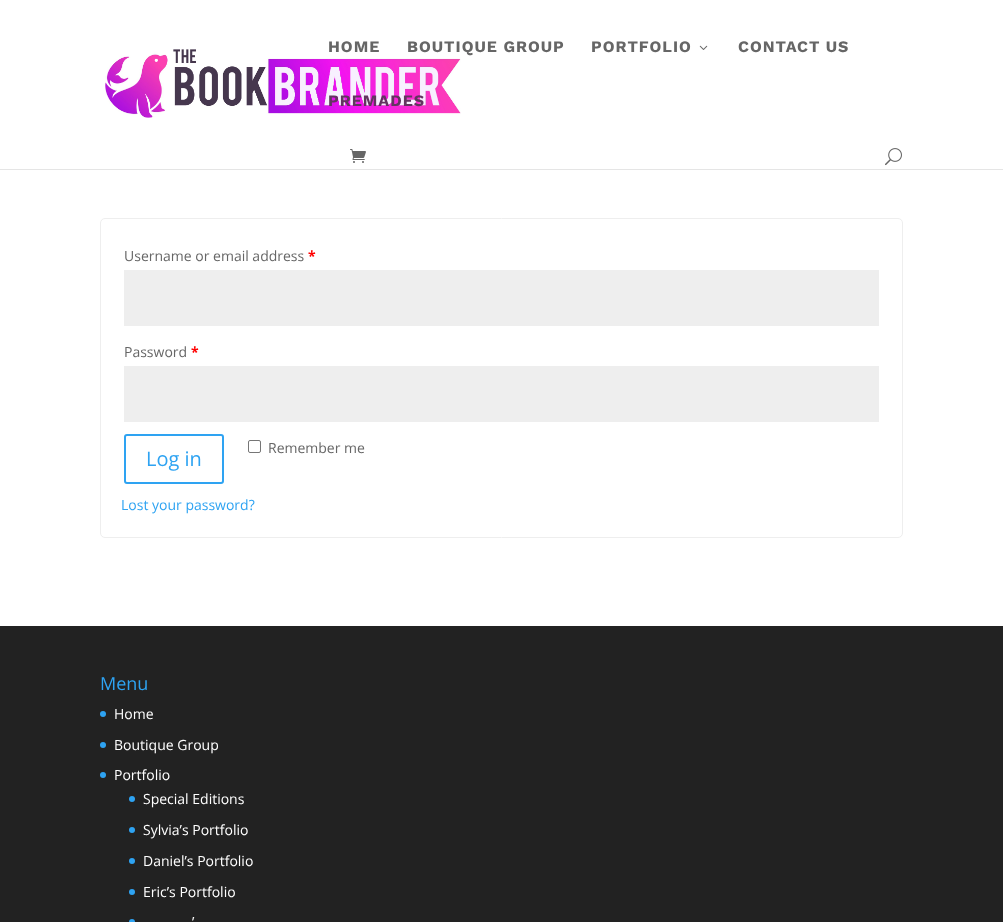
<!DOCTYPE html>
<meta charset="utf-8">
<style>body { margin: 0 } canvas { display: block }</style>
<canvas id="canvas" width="1003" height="922"></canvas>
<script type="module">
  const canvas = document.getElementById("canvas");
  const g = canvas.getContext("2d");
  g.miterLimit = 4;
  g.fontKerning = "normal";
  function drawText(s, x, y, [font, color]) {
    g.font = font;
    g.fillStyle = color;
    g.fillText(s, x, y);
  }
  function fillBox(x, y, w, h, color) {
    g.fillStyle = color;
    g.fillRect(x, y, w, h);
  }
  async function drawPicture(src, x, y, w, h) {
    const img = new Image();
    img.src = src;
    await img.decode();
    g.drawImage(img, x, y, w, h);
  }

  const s1 = ["bold 16px Work Sans", "#666666"];
  const s2 = ["bold 16px Work Sans", "#62355F"];
  const s3 = ["14px Open Sans", "#666666"];
  const s4 = ["bold 14px Open Sans", "#FF0000"];
  const s5 = ["20px Open Sans", "#2EA3F2"];
  const s6 = ["14px Open Sans", "#2EA3F2"];
  const s7 = ["18px Open Sans", "#2EA3F2"];
  const s8 = ["14px Open Sans", "#FFFFFF"];

  fillBox(0, 0, 1003, 922, "#FFFFFF");
  fillBox(0, 169, 1003, 1, "rgba(0, 0, 0, 0.1)");
  await drawPicture("pic1.png", 105, 49, 356, 69);
  g.letterSpacing = "1px";
  drawText("HOME", 328, 52, s1);
  drawText("BOUTIQUE GROUP", 407, 52, s1);
  drawText("PORTFOLIO", 591, 52, s1);
  await drawPicture("pic2.png", 699, 45, 9, 5);
  drawText("CONTACT US", 738, 52, s1);
  drawText("PREMADES", 328, 106, s2);
  await drawPicture("pic3.png", 350, 149, 16, 14);
  await drawPicture("pic4.png", 885, 148, 17, 18);
  g.beginPath();
  g.roundRect(100.5, 218.5, 802, 319, 4.5);
  g.strokeStyle = "#EEEEEE";
  g.stroke();
  g.letterSpacing = "0px";
  drawText("Username or email address", 124, 261, s3);
  drawText("*", 308, 261, s4);
  fillBox(124, 270, 755, 56, "#EEEEEE");
  drawText("Password", 124, 357, s3);
  drawText("*", 191, 357, s4);
  fillBox(124, 366, 755, 56, "#EEEEEE");
  g.beginPath();
  g.roundRect(248.5, 440.5, 12, 12, 1.5);
  g.strokeStyle = "#767676";
  g.stroke();
  drawText("Remember me", 268, 453, s3);
  g.beginPath();
  g.roundRect(125, 435, 98, 48, 2);
  g.strokeStyle = "#2EA3F2";
  g.lineWidth = 2;
  g.stroke();
  drawText("Log in", 146, 466, s5);
  drawText("Lost your password?", 121, 510, s6);
  fillBox(0, 626, 1003, 296, "#222222");
  drawText("Menu", 100, 690, s7);
  g.beginPath();
  g.arc(103, 714, 3, 0, Math.PI * 2);
  g.fill();
  drawText("Home", 114, 719, s8);
  g.fillStyle = "#2EA3F2";
  g.beginPath();
  g.arc(103, 745, 3, 0, Math.PI * 2);
  g.fill();
  drawText("Boutique Group", 114, 750, s8);
  g.fillStyle = "#2EA3F2";
  g.beginPath();
  g.arc(103, 775, 3, 0, Math.PI * 2);
  g.fill();
  drawText("Portfolio", 114, 780, s8);
  g.fillStyle = "#2EA3F2";
  g.beginPath();
  g.arc(132, 799, 3, 0, Math.PI * 2);
  g.fill();
  drawText("Special Editions", 143, 804, s8);
  g.fillStyle = "#2EA3F2";
  g.beginPath();
  g.arc(132, 830, 3, 0, Math.PI * 2);
  g.fill();
  drawText("Sylvia’s Portfolio", 143, 835, s8);
  g.fillStyle = "#2EA3F2";
  g.beginPath();
  g.arc(132, 861, 3, 0, Math.PI * 2);
  g.fill();
  drawText("Daniel’s Portfolio", 143, 866, s8);
  g.fillStyle = "#2EA3F2";
  g.beginPath();
  g.arc(132, 892, 3, 0, Math.PI * 2);
  g.fill();
  drawText("Eric’s Portfolio", 143, 897, s8);
  g.fillStyle = "#2EA3F2";
  g.beginPath();
  g.arc(132, 922, 3, 0, Math.PI * 2);
  g.fill();
  drawText("’", 192, 927, s8);
</script>
